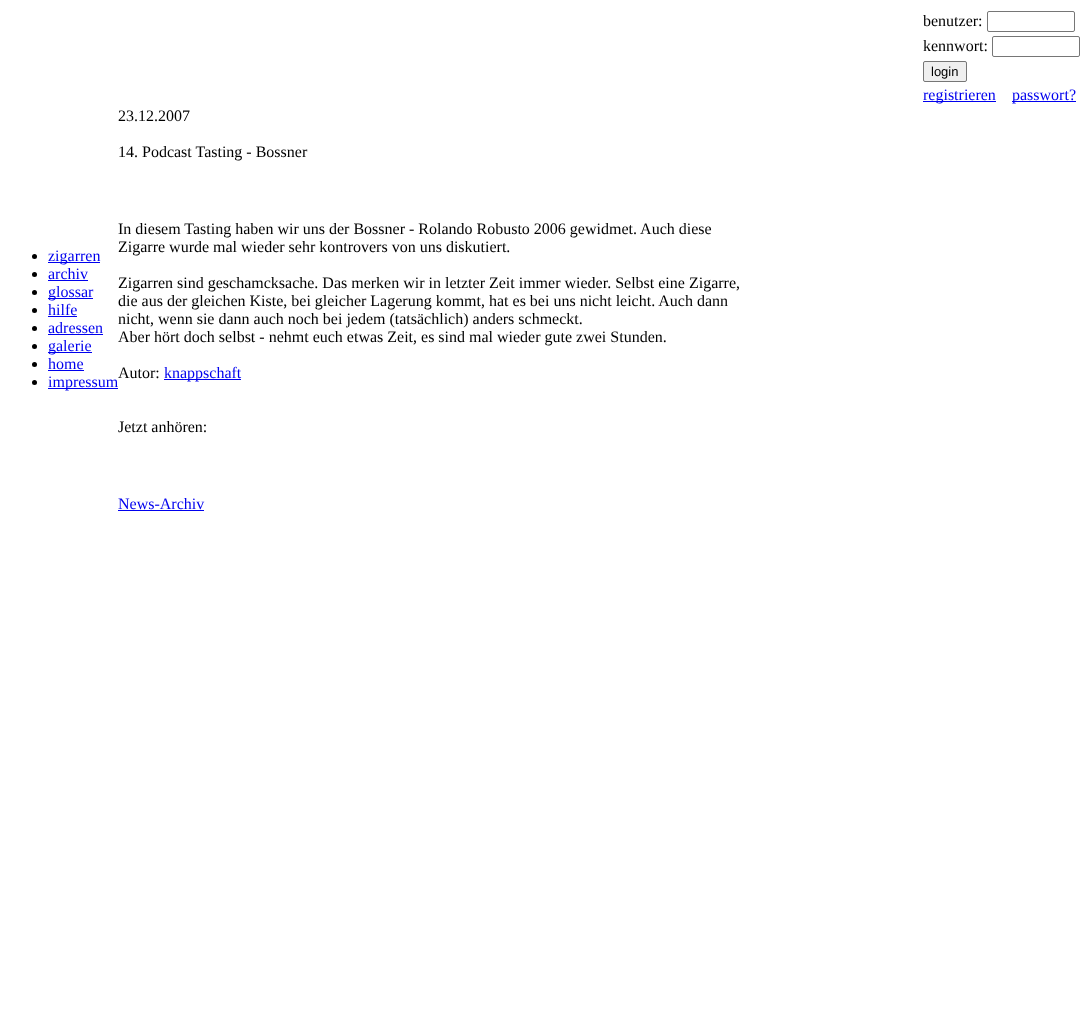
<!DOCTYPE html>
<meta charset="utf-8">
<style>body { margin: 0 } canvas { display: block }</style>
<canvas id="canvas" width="1091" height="1026"></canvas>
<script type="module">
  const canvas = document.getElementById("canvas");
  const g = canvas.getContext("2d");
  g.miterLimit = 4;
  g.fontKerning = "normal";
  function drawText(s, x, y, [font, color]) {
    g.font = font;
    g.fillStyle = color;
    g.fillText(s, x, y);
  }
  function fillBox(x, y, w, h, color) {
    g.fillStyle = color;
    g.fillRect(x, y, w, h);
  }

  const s1 = ["16px Liberation Serif", "#000000"];
  const s2 = ["13px Liberation Sans", "#000000"];
  const s3 = ["16px Liberation Serif", "#0000EE"];

  fillBox(0, 0, 1091, 1026, "#FFFFFF");
  drawText("benutzer:", 923, 26, s1);
  g.beginPath();
  g.roundRect(987.5, 11.5, 87, 20, 1.5);
  g.strokeStyle = "#767676";
  g.stroke();
  drawText("kennwort:", 923, 51, s1);
  g.beginPath();
  g.roundRect(992.5, 36.5, 87, 20, 1.5);
  g.stroke();
  g.fillStyle = "#EFEFEF";
  g.beginPath();
  g.roundRect(923.5, 61.5, 43, 20, 1.5);
  g.fill();
  g.stroke();
  drawText("login", 931, 76, s2);
  fillBox(923, 101, 73, 1, "#0000EE");
  drawText("registrieren", 923, 100, s3);
  fillBox(1012, 101, 64, 1, "#0000EE");
  drawText("passwort?", 1012, 100, s3);
  g.fillStyle = "#000000";
  g.beginPath();
  g.arc(34.5, 256.5, 2.5, 0, Math.PI * 2);
  g.fill();
  fillBox(48, 262, 52, 1, "#0000EE");
  drawText("zigarren", 48, 261, s3);
  g.fillStyle = "#000000";
  g.beginPath();
  g.arc(34.5, 274.5, 2.5, 0, Math.PI * 2);
  g.fill();
  drawText("archiv", 48, 279, s3);
  fillBox(48, 280, 40, 1, "#0000EE");
  g.fillStyle = "#000000";
  g.beginPath();
  g.arc(34.5, 292.5, 2.5, 0, Math.PI * 2);
  g.fill();
  fillBox(48, 298, 45, 1, "#0000EE");
  drawText("glossar", 48, 297, s3);
  g.fillStyle = "#000000";
  g.beginPath();
  g.arc(34.5, 310.5, 2.5, 0, Math.PI * 2);
  g.fill();
  drawText("hilfe", 48, 315, s3);
  fillBox(48, 316, 29, 1, "#0000EE");
  g.fillStyle = "#000000";
  g.beginPath();
  g.arc(34.5, 328.5, 2.5, 0, Math.PI * 2);
  g.fill();
  drawText("adressen", 48, 333, s3);
  fillBox(48, 334, 55, 1, "#0000EE");
  g.fillStyle = "#000000";
  g.beginPath();
  g.arc(34.5, 346.5, 2.5, 0, Math.PI * 2);
  g.fill();
  fillBox(48, 352, 44, 1, "#0000EE");
  drawText("galerie", 48, 351, s3);
  g.fillStyle = "#000000";
  g.beginPath();
  g.arc(34.5, 364.5, 2.5, 0, Math.PI * 2);
  g.fill();
  drawText("home", 48, 369, s3);
  fillBox(48, 370, 36, 1, "#0000EE");
  g.fillStyle = "#000000";
  g.beginPath();
  g.arc(34.5, 382.5, 2.5, 0, Math.PI * 2);
  g.fill();
  fillBox(48, 388, 70, 1, "#0000EE");
  drawText("impressum", 48, 387, s3);
  drawText("23.12.2007", 118, 121, s1);
  drawText("14. Podcast Tasting - Bossner", 118, 157, s1);
  drawText("In diesem Tasting haben wir uns der Bossner - Rolando Robusto 2006 gewidmet. Auch diese", 118, 234, s1);
  drawText("Zigarre wurde mal wieder sehr kontrovers von uns diskutiert.", 118, 252, s1);
  drawText("Zigarren sind geschamcksache. Das merken wir in letzter Zeit immer wieder. Selbst eine Zigarre,", 118, 288, s1);
  drawText("die aus der gleichen Kiste, bei gleicher Lagerung kommt, hat es bei uns nicht leicht. Auch dann", 118, 306, s1);
  drawText("nicht, wenn sie dann auch noch bei jedem (tatsächlich) anders schmeckt.", 118, 324, s1);
  drawText("Aber hört doch selbst - nehmt euch etwas Zeit, es sind mal wieder gute zwei Stunden.", 118, 342, s1);
  drawText("Autor:", 118, 378, s1);
  fillBox(164, 379, 77, 1, "#0000EE");
  drawText("knappschaft", 164, 378, s3);
  drawText("Jetzt anhören:", 118, 432, s1);
  drawText("News-Archiv", 118, 509, s3);
  fillBox(118, 510, 86, 1, "#0000EE");
</script>
